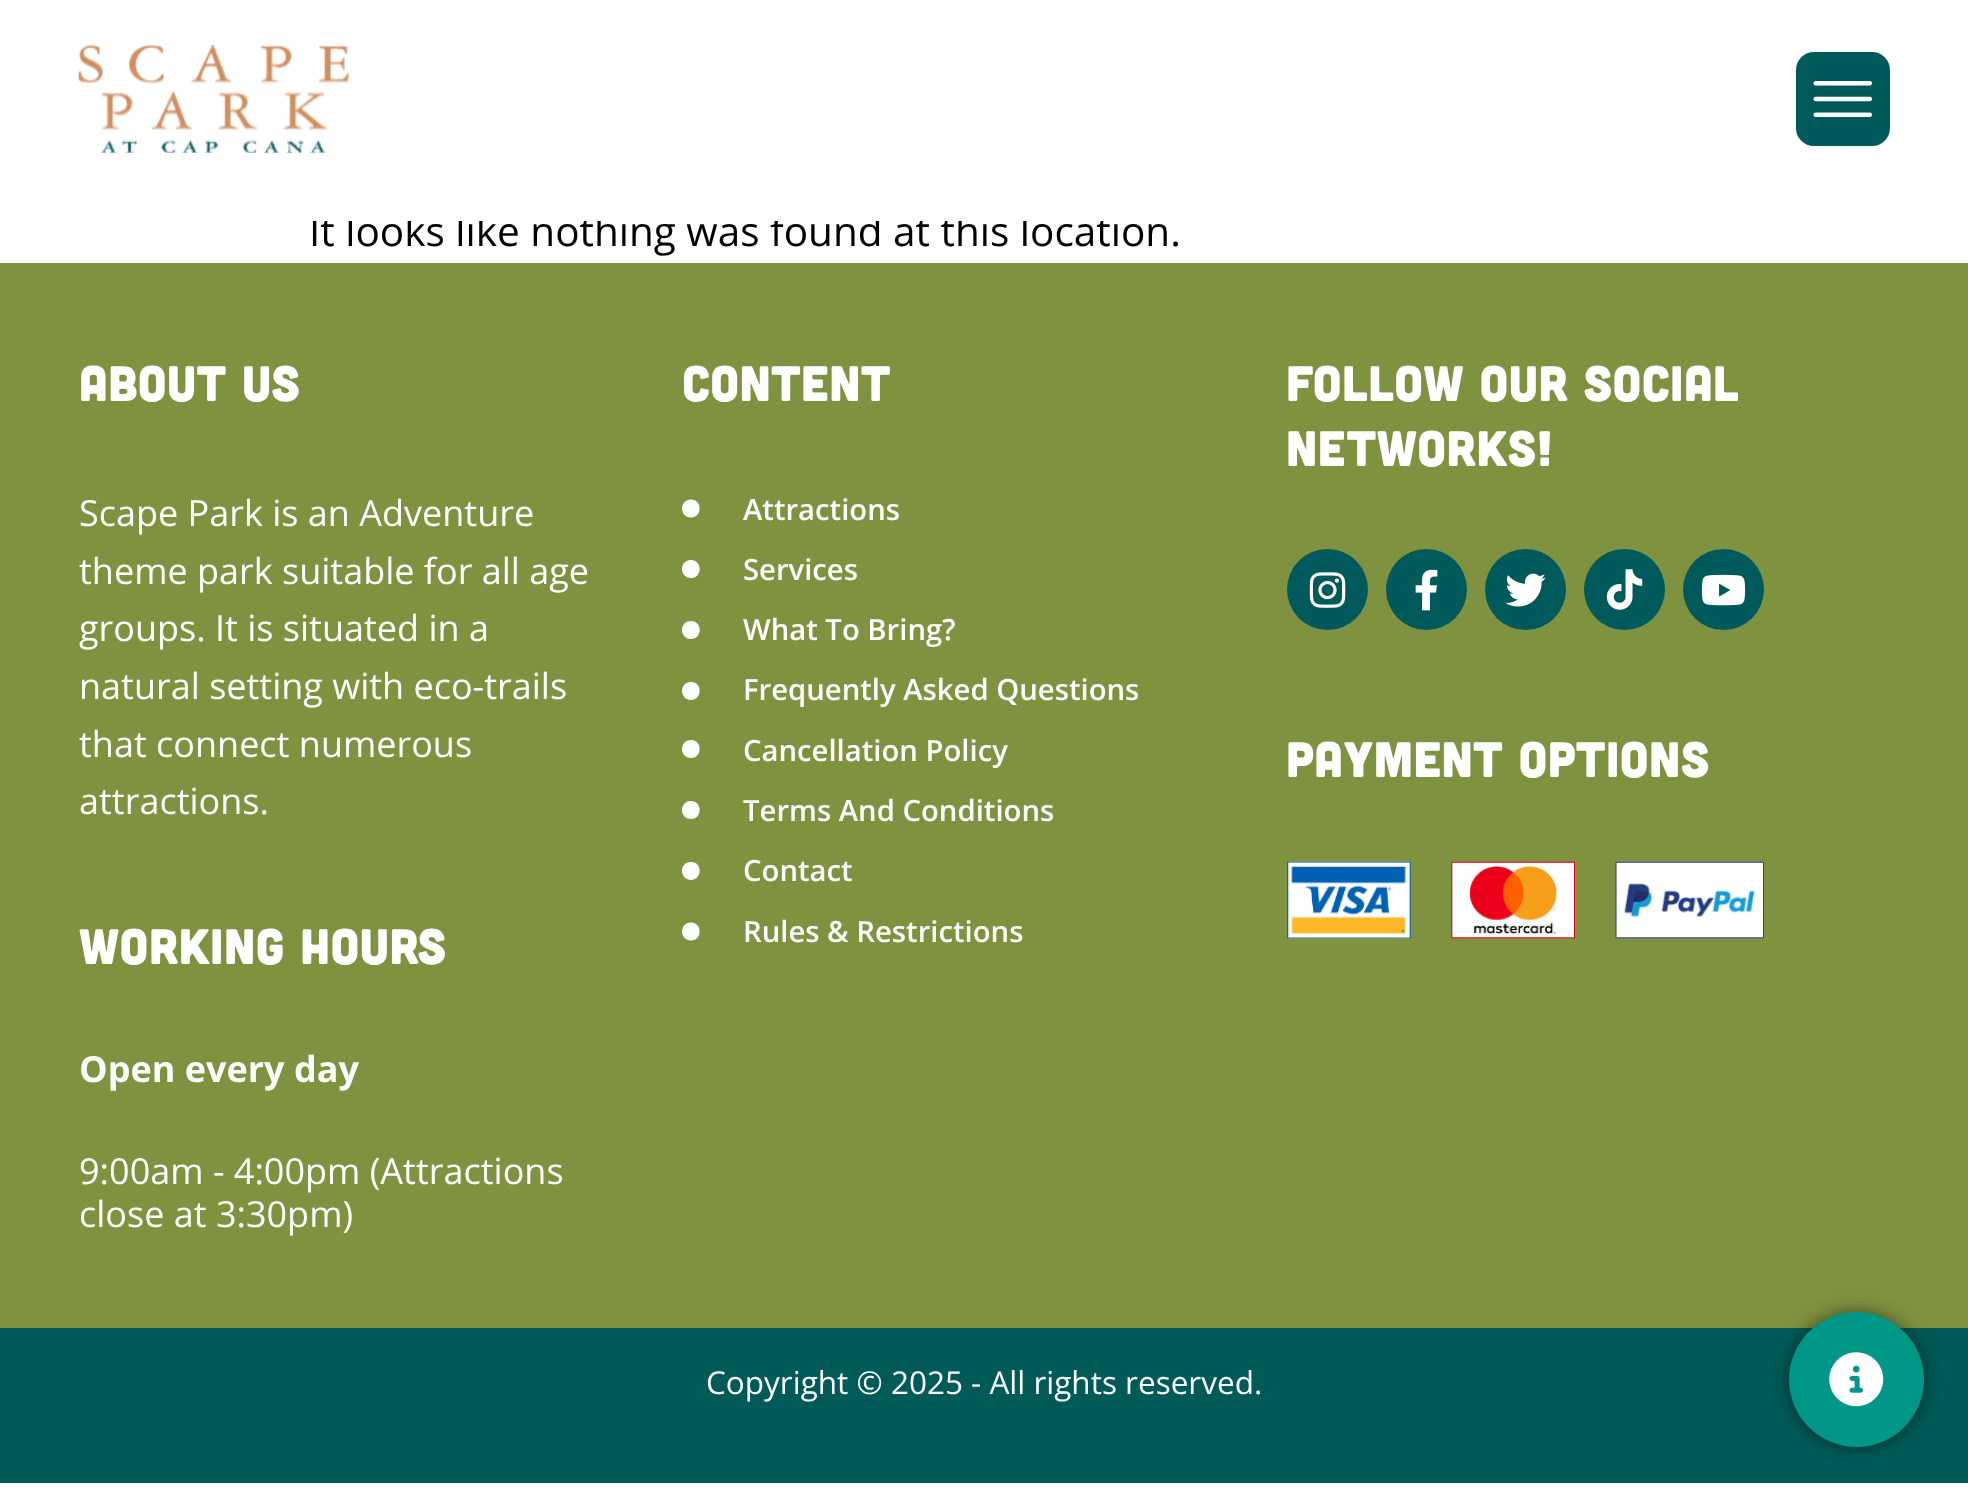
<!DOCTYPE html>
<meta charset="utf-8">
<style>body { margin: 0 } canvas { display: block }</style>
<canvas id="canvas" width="1968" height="1491"></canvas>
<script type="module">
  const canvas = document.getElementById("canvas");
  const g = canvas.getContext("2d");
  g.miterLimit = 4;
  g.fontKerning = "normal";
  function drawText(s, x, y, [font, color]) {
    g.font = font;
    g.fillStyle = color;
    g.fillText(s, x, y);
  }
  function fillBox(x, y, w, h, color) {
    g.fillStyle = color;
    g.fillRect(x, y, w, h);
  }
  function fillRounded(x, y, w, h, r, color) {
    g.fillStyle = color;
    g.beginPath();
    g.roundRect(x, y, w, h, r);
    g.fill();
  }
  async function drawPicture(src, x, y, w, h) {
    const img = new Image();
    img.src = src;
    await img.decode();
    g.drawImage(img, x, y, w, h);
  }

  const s1 = ["40.5px Open Sans", "#000000"];
  const s2 = ["49.5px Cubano", "#FFFFFF"];
  const s3 = ["36px Open Sans", "#FFFFFF"];
  const s4 = ["bold 36px Open Sans", "#FFFFFF"];
  const s5 = ["600 29.25px Open Sans", "#FFFFFF"];
  const s6 = ["31.5px Open Sans", "#FFFFFF"];

  fillBox(0, 0, 1968, 1491, "#FFFFFF");
  drawText("It looks like nothing was found at this location.", 309, 246, s1);
  fillBox(313, 215, 806, 6, "#FFFFFF");
  await drawPicture("pic1.png", 78, 45, 271, 108);
  fillRounded(1796, 52, 94, 94, 18, "#00595A");
  await drawPicture("pic2.png", 1813, 81, 59, 36);
  fillBox(0, 263, 1968, 1065, "#7F9240");
  g.letterSpacing = "0.5px";
  drawText("About us", 79, 401, s2);
  g.letterSpacing = "0px";
  drawText("Scape Park is an Adventure", 79, 526, s3);
  drawText("theme park suitable for all age", 79, 584, s3);
  drawText("groups. It is situated in a", 79, 641, s3);
  drawText("natural setting with eco-trails", 79, 699, s3);
  drawText("that connect numerous", 79, 757, s3);
  drawText("attractions.", 79, 814, s3);
  g.letterSpacing = "0.5px";
  drawText("WORKING HOURS", 79, 964, s2);
  g.letterSpacing = "0px";
  drawText("Open every day", 79, 1082, s4);
  drawText("9:00am - 4:00pm (Attractions", 79, 1184, s3);
  drawText("close at 3:30pm)", 79, 1227, s3);
  g.letterSpacing = "0.5px";
  drawText("CONTENT", 682, 401, s2);
  g.beginPath();
  g.moveTo(691, 517.5);
  g.bezierCurveTo(702.5, 517.5, 702.5, 499.5, 691, 499.5);
  g.bezierCurveTo(679, 499.5, 679, 517.5, 691, 517.5);
  g.closePath();
  g.fill();
  g.letterSpacing = "0px";
  drawText("Attractions", 743, 520, s5);
  g.beginPath();
  g.moveTo(691, 578);
  g.bezierCurveTo(702.5, 578, 702.5, 560, 691, 560);
  g.bezierCurveTo(679, 560, 679, 578, 691, 578);
  g.closePath();
  g.fill();
  drawText("Services", 743, 580, s5);
  g.beginPath();
  g.moveTo(691, 639);
  g.bezierCurveTo(702.5, 639, 702.5, 621, 691, 621);
  g.bezierCurveTo(679, 621, 679, 639, 691, 639);
  g.closePath();
  g.fill();
  drawText("What To Bring?", 743, 640, s5);
  g.beginPath();
  g.moveTo(691, 700);
  g.bezierCurveTo(702.5, 699.5, 702.5, 682, 691, 682);
  g.bezierCurveTo(679, 682, 679, 699.5, 691, 700);
  g.closePath();
  g.fill();
  drawText("Frequently Asked Questions", 743, 700, s5);
  g.beginPath();
  g.moveTo(691, 758);
  g.bezierCurveTo(702.5, 758, 702.5, 740, 691, 740);
  g.bezierCurveTo(679, 740, 679, 758, 691, 758);
  g.closePath();
  g.fill();
  drawText("Cancellation Policy", 743, 761, s5);
  g.beginPath();
  g.moveTo(691, 819);
  g.bezierCurveTo(702.5, 819, 702.5, 801, 691, 801);
  g.bezierCurveTo(679, 801, 679, 819, 691, 819);
  g.closePath();
  g.fill();
  drawText("Terms And Conditions", 743, 821, s5);
  g.beginPath();
  g.moveTo(691, 880);
  g.bezierCurveTo(702.5, 879.5, 702.5, 862, 691, 862);
  g.bezierCurveTo(679, 862, 679, 879.5, 691, 880);
  g.closePath();
  g.fill();
  drawText("Contact", 743, 881, s5);
  g.beginPath();
  g.moveTo(691, 940.5);
  g.bezierCurveTo(702.5, 940.5, 702.5, 922.5, 691, 922.5);
  g.bezierCurveTo(679, 922.5, 679, 940.5, 691, 940.5);
  g.closePath();
  g.fill();
  drawText("Rules & Restrictions", 743, 942, s5);
  g.letterSpacing = "0.5px";
  drawText("Follow our Social", 1286, 401, s2);
  drawText("Networks!", 1286, 466, s2);
  g.fillStyle = "#00595A";
  g.beginPath();
  g.arc(1327.5, 589.5, 40.5, 0, Math.PI * 2);
  g.fill();
  await drawPicture("pic3.png", 1309, 572, 37, 36);
  g.beginPath();
  g.arc(1426.5, 589.5, 40.5, 0, Math.PI * 2);
  g.fill();
  await drawPicture("pic4.png", 1415, 569, 23, 42);
  g.beginPath();
  g.arc(1525.5, 589.5, 40.5, 0, Math.PI * 2);
  g.fill();
  await drawPicture("pic5.png", 1505, 573, 41, 34);
  g.beginPath();
  g.arc(1624.5, 589.5, 40.5, 0, Math.PI * 2);
  g.fill();
  await drawPicture("pic6.png", 1606, 569, 37, 41);
  g.beginPath();
  g.arc(1723.5, 589.5, 40.5, 0, Math.PI * 2);
  g.fill();
  await drawPicture("pic7.png", 1701, 574, 45, 32);
  drawText("Payment options", 1286, 777, s2);
  await drawPicture("pic8.png", 1287, 861, 124, 78);
  await drawPicture("pic9.png", 1451, 861, 124, 78);
  await drawPicture("pic10.png", 1615, 861, 149, 78);
  fillBox(0, 1328, 1968, 155, "#005A58");
  g.letterSpacing = "0px";
  drawText("Copyright © 2025 - All rights reserved.", 706, 1394, s6);
  g.fillStyle = "rgba(0, 0, 0, 0.5)";
  g.filter = "blur(9px)";
  g.beginPath();
  g.roundRect(1789, 1312, 135, 135, 67.5);
  g.fill();
  g.filter = "none";
  g.fillStyle = "#009688";
  g.beginPath();
  g.arc(1856.5, 1379.5, 67.5, 0, Math.PI * 2);
  g.fill();
  await drawPicture("pic11.png", 1829, 1352, 55, 55);
</script>
